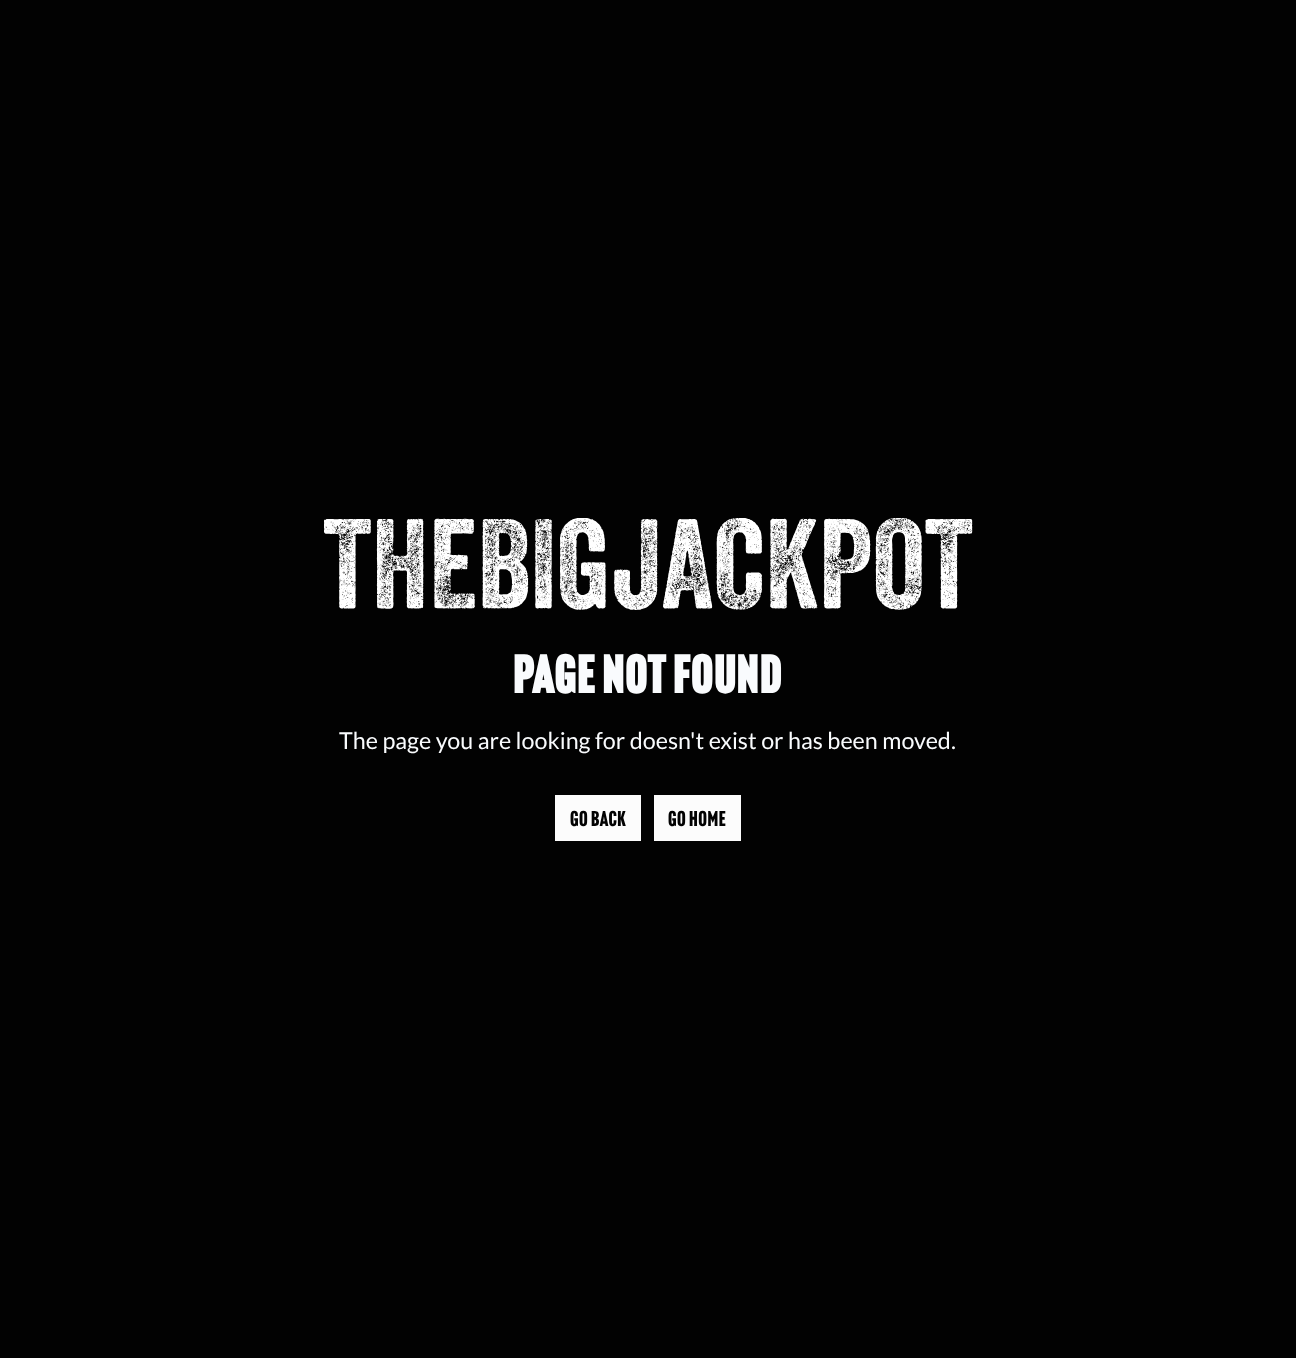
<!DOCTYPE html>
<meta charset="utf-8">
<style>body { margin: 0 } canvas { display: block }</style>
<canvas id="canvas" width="1296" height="1358"></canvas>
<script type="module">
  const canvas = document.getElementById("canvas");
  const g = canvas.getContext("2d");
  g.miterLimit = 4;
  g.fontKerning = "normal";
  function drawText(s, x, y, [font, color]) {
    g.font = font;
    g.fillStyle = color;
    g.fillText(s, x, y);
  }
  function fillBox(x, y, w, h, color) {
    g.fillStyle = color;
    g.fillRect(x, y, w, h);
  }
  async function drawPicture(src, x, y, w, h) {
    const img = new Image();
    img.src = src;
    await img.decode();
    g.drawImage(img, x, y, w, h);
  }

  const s1 = ["bold 52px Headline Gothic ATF", "#F9FBFD"];
  const s2 = ["23.3px Lato", "#F9FBFD"];
  const s3 = ["21px Headline Gothic ATF", "#020202"];

  fillBox(0, 0, 1296, 1358, "#020202");
  await drawPicture("pic1.png", 324, 518, 649, 92);
  g.letterSpacing = "1.5px";
  drawText("PAGE NOT FOUND", 513, 693, s1);
  g.letterSpacing = "0px";
  drawText("The page you are looking for doesn't exist or has been moved.", 339, 749, s2);
  fillBox(555, 795, 86, 46, "#FCFCFC");
  g.letterSpacing = "0.5px";
  drawText("GO BACK", 570, 826, s3);
  fillBox(654, 795, 87, 46, "#FCFCFC");
  drawText("GO HOME", 668, 826, s3);
</script>
